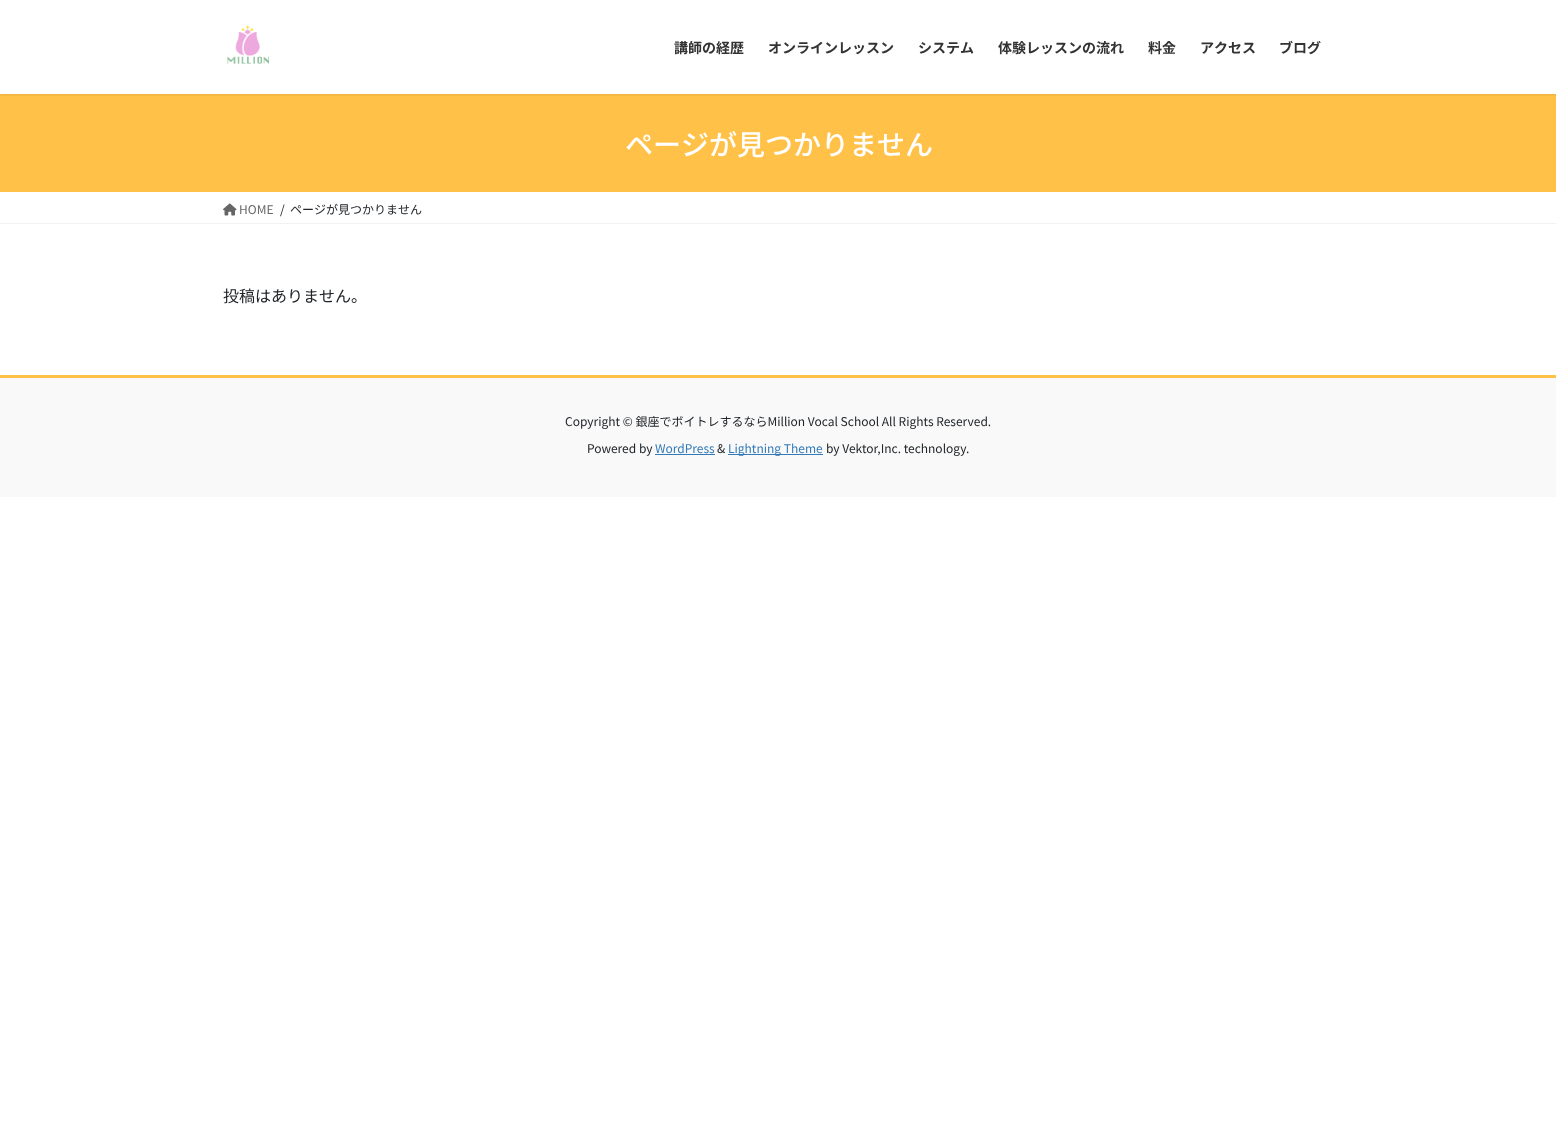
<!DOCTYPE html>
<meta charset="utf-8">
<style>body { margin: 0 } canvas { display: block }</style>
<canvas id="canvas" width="1556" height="1145"></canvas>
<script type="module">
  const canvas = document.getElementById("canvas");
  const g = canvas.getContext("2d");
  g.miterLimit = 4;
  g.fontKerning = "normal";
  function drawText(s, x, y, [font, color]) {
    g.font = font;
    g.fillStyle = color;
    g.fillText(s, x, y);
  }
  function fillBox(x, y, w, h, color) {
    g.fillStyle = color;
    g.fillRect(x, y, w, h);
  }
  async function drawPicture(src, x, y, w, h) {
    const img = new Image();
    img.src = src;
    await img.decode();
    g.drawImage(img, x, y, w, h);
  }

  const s1 = ["bold 14px Noto Sans JP", "#333333"];
  const s2 = ["500 28px Noto Sans JP", "#FFFFFF"];
  const s3 = ["12px Noto Sans JP", "#666666"];
  const s4 = ["12px Noto Sans JP", "#212529"];
  const s5 = ["16px Noto Sans JP", "#212529"];
  const s6 = ["12px Noto Sans JP", "#337AB7"];

  fillBox(0, 0, 1556, 1145, "#FFFFFF");
  fillBox(0, 94, 1556, 98, "#FFC147");
  g.save();
  g.beginPath();
  g.rect(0, 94, 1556, 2);
  g.clip();
  g.fillStyle = "rgba(0, 0, 0, 0.1)";
  g.filter = "blur(1.5px)";
  g.beginPath();
  g.rect(0, 1, 1556, 94);
  g.fill();
  g.filter = "none";
  g.restore();
  await drawPicture("pic1.png", 227, 25, 42, 39);
  drawText("講師の経歴", 674, 53, s1);
  drawText("オンラインレッスン", 768, 53, s1);
  drawText("システム", 918, 53, s1);
  drawText("体験レッスンの流れ", 998, 53, s1);
  drawText("料金", 1148, 53, s1);
  drawText("アクセス", 1200, 53, s1);
  drawText("ブログ", 1279, 53, s1);
  drawText("ページが見つかりません", 625, 155, s2);
  fillBox(0, 223, 1556, 1, "#F2F2F2");
  await drawPicture("pic2.png", 223, 203, 14, 13);
  drawText("HOME", 239, 214, s3);
  drawText("/", 280, 214, s4);
  drawText("ページが見つかりません", 290, 214, s4);
  drawText("投稿はありません。", 223, 302, s5);
  fillBox(0, 378, 1556, 119, "#F9F9F9");
  fillBox(0, 375, 1556, 3, "#FFC147");
  drawText("Copyright © 銀座でボイトレするならMillion Vocal School All Rights Reserved.", 565, 426, s4);
  drawText("Powered by", 587, 453, s4);
  drawText("WordPress", 655, 453, s6);
  fillBox(655, 454, 60, 1, "#337AB7");
  drawText("&", 717, 453, s4);
  fillBox(728, 454, 95, 1, "#337AB7");
  drawText("Lightning Theme", 728, 453, s6);
  drawText("by Vektor,Inc. technology.", 826, 453, s4);
</script>
